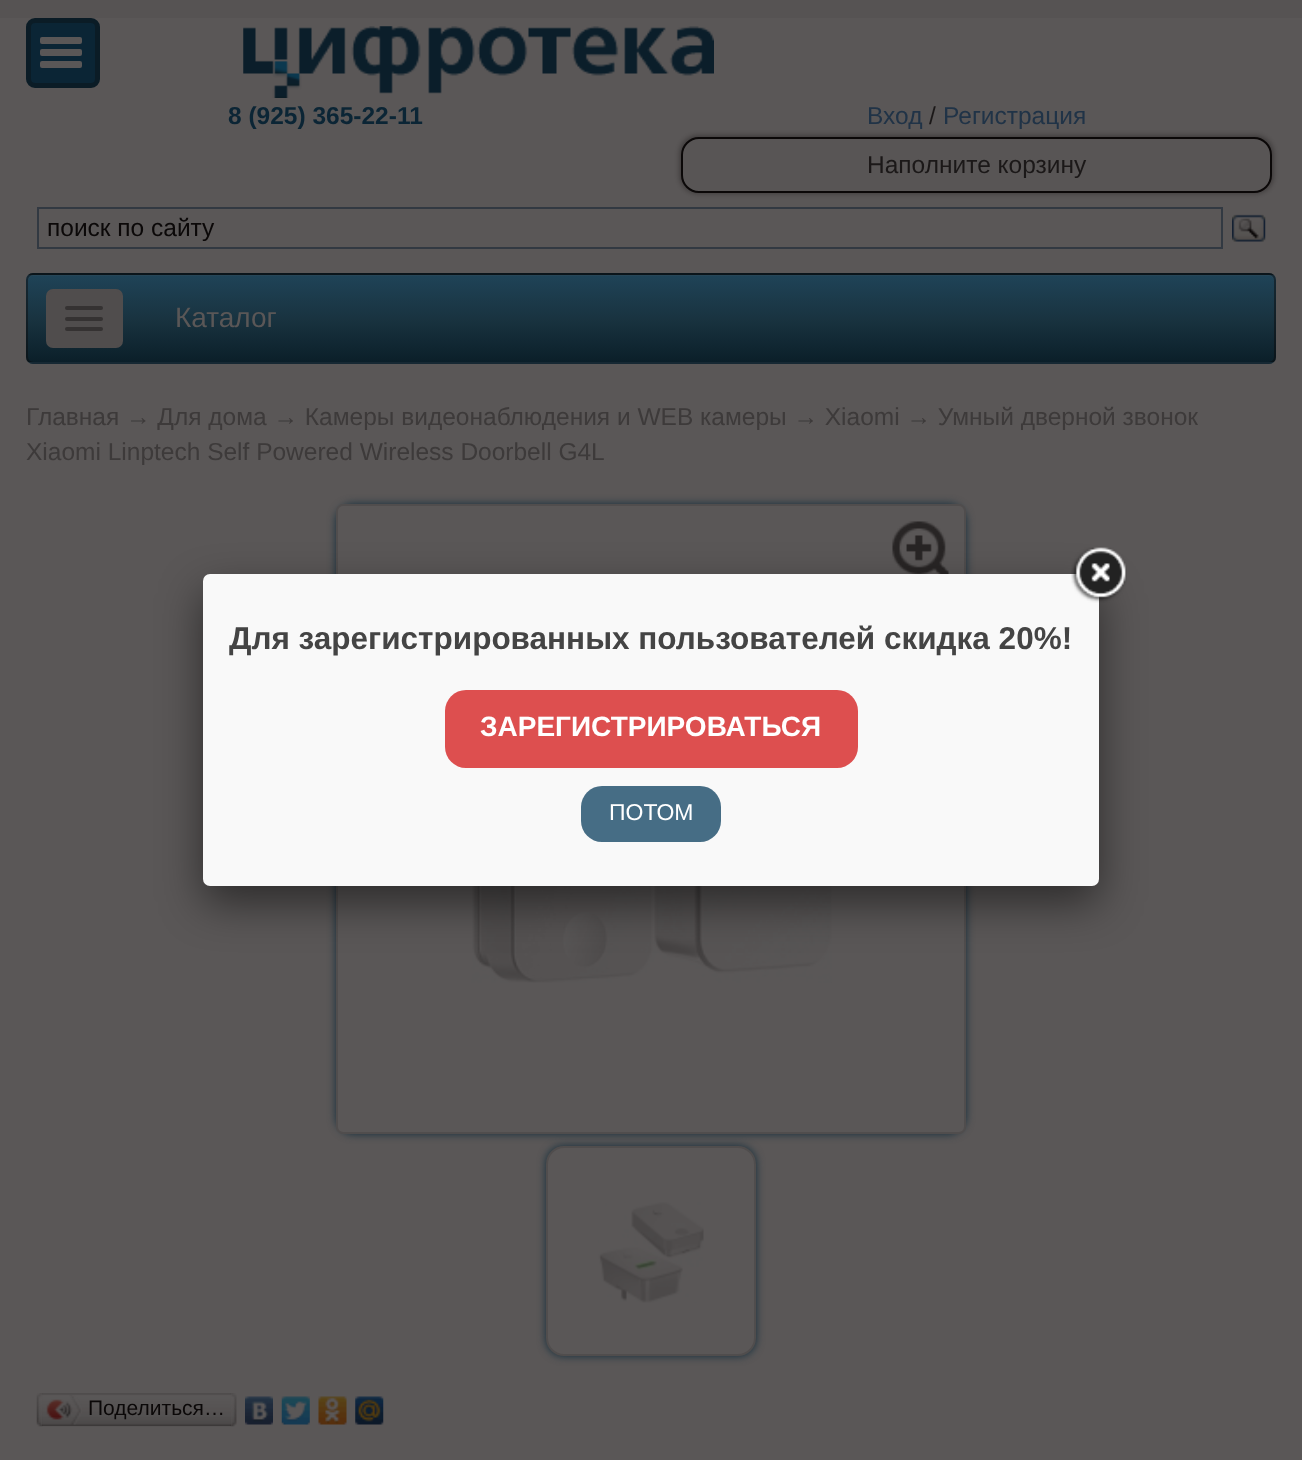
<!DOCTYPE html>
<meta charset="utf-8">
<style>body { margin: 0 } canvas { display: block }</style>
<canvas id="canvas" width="1302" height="1460"></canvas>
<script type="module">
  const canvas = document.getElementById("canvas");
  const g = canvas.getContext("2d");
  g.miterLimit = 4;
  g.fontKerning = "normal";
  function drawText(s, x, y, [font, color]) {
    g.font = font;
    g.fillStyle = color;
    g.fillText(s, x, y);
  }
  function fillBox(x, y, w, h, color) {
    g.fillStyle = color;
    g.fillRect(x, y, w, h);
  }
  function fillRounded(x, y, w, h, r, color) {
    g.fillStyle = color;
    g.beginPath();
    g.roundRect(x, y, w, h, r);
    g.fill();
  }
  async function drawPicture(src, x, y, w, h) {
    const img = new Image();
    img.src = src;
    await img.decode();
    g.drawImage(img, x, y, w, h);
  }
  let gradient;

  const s1 = ["bold 24.5px Liberation Sans", "#0B2535"];
  const s2 = ["24.5px Liberation Sans", "#203347"];
  const s3 = ["24.5px Liberation Sans", "#1B1818"];
  const s4 = ["24.5px Liberation Sans", "#0B0808"];
  const s5 = ["28px Liberation Sans", "#5A5757"];
  const s6 = ["24.5px Liberation Sans", "#3D3A3A"];
  const s7 = ["21px Liberation Sans", "#0B0808"];
  const s8 = ["bold 31.5px Liberation Sans", "#444444"];
  const s9 = ["bold 28px Liberation Sans", "#FFFFFF"];
  const s10 = ["23px Liberation Sans", "#FFFFFF"];

  fillBox(0, 0, 1302, 1460, "#565353");
  fillBox(0, 18, 1302, 1442, "#5A5757");
  g.fillStyle = "#0B2535";
  g.beginPath();
  g.roundRect(28.5, 20.5, 69, 65, 6.5);
  g.fill();
  g.strokeStyle = "#0B1C26";
  g.lineWidth = 5;
  g.stroke();
  fillRounded(40, 37, 42, 7, 2, "#5A5757");
  fillRounded(40, 49, 42, 7, 2, "#5A5757");
  fillRounded(40, 61, 42, 7, 2, "#5A5757");
  await drawPicture("pic1.png", 243, 26, 471, 72);
  drawText("8 (925) 365-22-11", 228, 124, s1);
  g.fillStyle = "rgba(11, 8, 8, 0.3)";
  g.filter = "blur(2px)";
  g.beginPath();
  g.roundRect(679, 135, 595, 59, 19);
  g.fill();
  g.filter = "none";
  drawText("Вход", 867, 124, s2);
  drawText("/", 929, 124, s3);
  drawText("Регистрация", 943, 124, s2);
  g.fillStyle = "#585555";
  g.beginPath();
  g.roundRect(682, 138, 589, 54, 17);
  g.fill();
  g.strokeStyle = "#0B0808";
  g.lineWidth = 2;
  g.stroke();
  drawText("Наполните корзину", 867, 173, s3);
  g.strokeStyle = "#323942";
  g.strokeRect(38, 208, 1184, 40);
  drawText("поиск по сайту", 47, 236, s4);
  await drawPicture("pic2.png", 1232, 214, 34, 28);
  g.save();
  g.beginPath();
  g.roundRect(26, 273, 1250, 91, 7);
  g.clip();
  gradient = g.createLinearGradient(651, 187, 651, 275);
  gradient.addColorStop(0.01, "#1F4357");
  gradient.addColorStop(0.5, "#193340");
  gradient.addColorStop(1, "#0B1F29");
  g.fillStyle = gradient;
  g.fillRect(26, 273, 1250, 2);
  gradient = g.createLinearGradient(651, 275, 651, 362);
  gradient.addColorStop(0.01, "#1F4357");
  gradient.addColorStop(0.5, "#193340");
  gradient.addColorStop(1, "#0B1F29");
  g.fillStyle = gradient;
  g.fillRect(26, 275, 1250, 87);
  gradient = g.createLinearGradient(651, 362, 651, 450);
  gradient.addColorStop(0.01, "#1F4357");
  gradient.addColorStop(0.5, "#193340");
  gradient.addColorStop(1, "#0B1F29");
  g.fillStyle = gradient;
  g.fillRect(26, 362, 1250, 2);
  g.restore();
  g.fillStyle = "rgba(90, 87, 87, 0.15)";
  g.beginPath();
  g.moveTo(33, 276);
  g.lineTo(1269, 276);
  g.bezierCurveTo(1272, 276, 1274, 279, 1274, 282);
  g.lineTo(1274, 280);
  g.bezierCurveTo(1274, 277, 1272, 275, 1269, 275);
  g.lineTo(33, 275);
  g.bezierCurveTo(30, 275, 28, 277, 28, 280);
  g.lineTo(28, 282);
  g.bezierCurveTo(28, 279, 30, 276, 33, 276);
  g.closePath();
  g.fill();
  g.beginPath();
  g.roundRect(27, 274, 1248, 89, 6);
  g.strokeStyle = "rgba(11, 8, 8, 0.45)";
  g.stroke();
  g.fillStyle = "#504D4D";
  g.beginPath();
  g.roundRect(47, 290, 75, 57, 6);
  g.fill();
  g.strokeStyle = "#504D4D";
  g.stroke();
  fillRounded(65, 306, 38, 4, 2, "#353232");
  fillRounded(65, 317, 38, 4, 2, "#353232");
  fillRounded(65, 327, 38, 4, 2, "#353232");
  drawText("Каталог", 175, 327, s5);
  drawText("Главная → Для дома → Камеры видеонаблюдения и WEB камеры → Xiaomi → Умный дверной звонок", 26, 425, s6);
  drawText("Xiaomi Linptech Self Powered Wireless Doorbell G4L", 26, 460, s6);
  g.fillStyle = "#122D3C";
  g.filter = "blur(4.5px)";
  g.beginPath();
  g.roundRect(546, 1146, 210, 210, 18);
  g.fill();
  g.filter = "none";
  g.fillStyle = "#5A5757";
  g.beginPath();
  g.roundRect(547, 1147, 208, 208, 17);
  g.fill();
  g.stroke();
  g.fillStyle = "#122D3C";
  g.filter = "blur(4.5px)";
  g.beginPath();
  g.roundRect(336, 504, 630, 630, 18);
  g.fill();
  g.filter = "none";
  g.fillStyle = "#5A5757";
  g.beginPath();
  g.roundRect(337, 505, 628, 628, 6);
  g.fill();
  g.stroke();
  await drawPicture("pic3.png", 471, 886, 361, 97);
  await drawPicture("pic4.png", 892, 521, 57, 53);
  await drawPicture("pic5.png", 598, 1202, 106, 101);
  await drawPicture("pic6.png", 42, 1393, 189, 34);
  await drawPicture("pic7.png", 36, 1393, 7, 34);
  await drawPicture("pic8.png", 46, 1395, 36, 30);
  drawText("Поделиться…", 88, 1415, s7);
  await drawPicture("pic9.png", 230, 1393, 7, 34);
  await drawPicture("pic10.png", 245, 1396, 28, 29);
  await drawPicture("pic11.png", 281, 1396, 29, 29);
  await drawPicture("pic12.png", 318, 1396, 29, 29);
  await drawPicture("pic13.png", 355, 1396, 29, 29);
  g.fillStyle = "rgba(0, 0, 0, 0.5)";
  g.filter = "blur(22px)";
  g.beginPath();
  g.roundRect(203, 592, 896, 311, 7);
  g.fill();
  g.filter = "none";
  fillRounded(203, 574, 896, 312, 7, "#F9F9F9");
  await drawPicture("pic14.png", 1071, 547, 56, 56);
  drawText("Для зарегистрированных пользователей скидка 20%!", 229, 649, s8);
  fillRounded(445, 690, 413, 78, 21, "#DD4F4F");
  drawText("ЗАРЕГИСТРИРОВАТЬСЯ", 480, 736, s9);
  fillRounded(581, 786, 140, 56, 21, "#466D85");
  drawText("ПОТОМ", 609, 820, s10);
</script>
